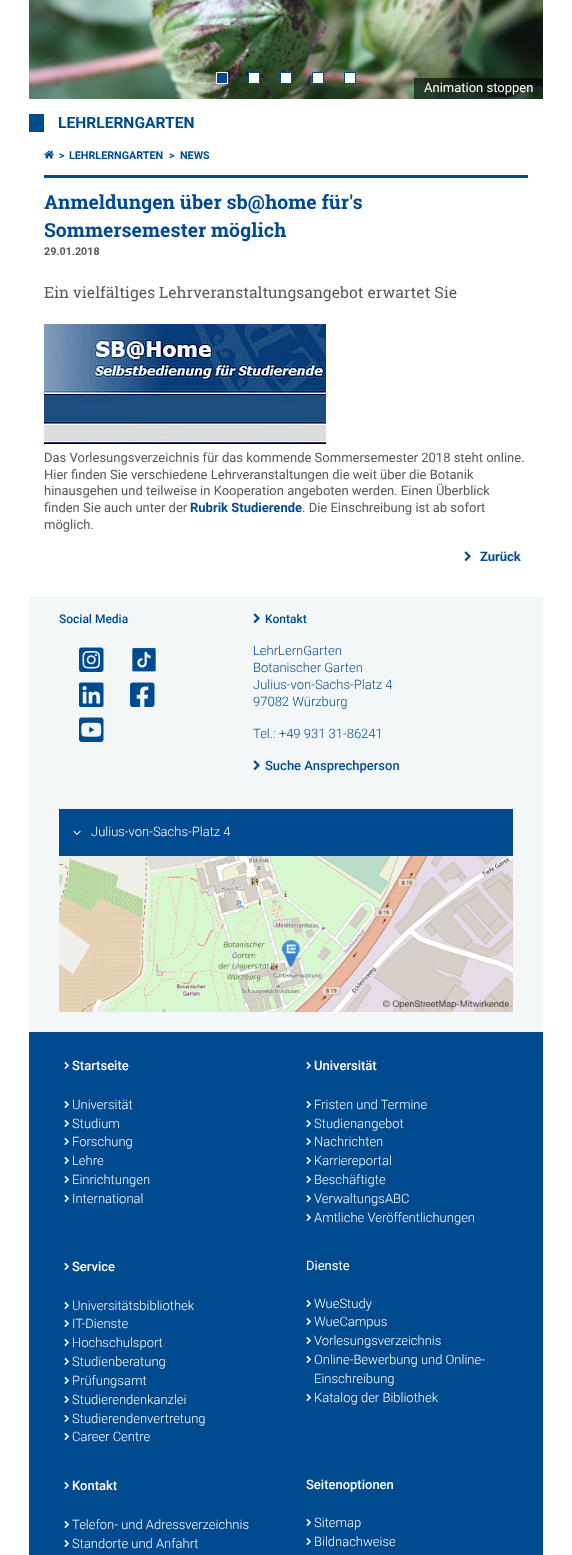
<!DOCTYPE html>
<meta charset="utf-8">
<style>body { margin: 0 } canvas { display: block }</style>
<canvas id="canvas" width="572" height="1555"></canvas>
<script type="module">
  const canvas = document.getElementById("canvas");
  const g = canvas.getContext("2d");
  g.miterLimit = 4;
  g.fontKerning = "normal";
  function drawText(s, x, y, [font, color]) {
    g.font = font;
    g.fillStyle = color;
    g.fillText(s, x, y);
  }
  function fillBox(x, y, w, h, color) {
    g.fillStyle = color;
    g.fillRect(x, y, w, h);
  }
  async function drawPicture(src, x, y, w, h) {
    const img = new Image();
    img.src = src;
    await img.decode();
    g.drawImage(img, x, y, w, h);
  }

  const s1 = ["13px Roboto", "#FFFFFF"];
  const s2 = ["bold 15.6px Roboto", "#004A8F"];
  const s3 = ["bold 10.75px Roboto", "#004A8F"];
  const s4 = ["bold 19.5px Roboto Slab", "#004A8F"];
  const s5 = ["bold 10.75px Roboto", "#595959"];
  const s6 = ["15.6px Roboto Slab", "#595959"];
  const s7 = ["13px Roboto", "#595959"];
  const s8 = ["bold 13px Roboto", "#004A8F"];
  const s9 = ["500 12px Roboto", "#004A8F"];
  const s10 = ["300 13px Roboto", "#004A8F"];
  const s11 = ["500 13px Roboto", "#004A8F"];
  const s12 = ["300 13px Roboto", "#FFFFFF"];
  const s13 = ["500 13px Roboto", "#FFFFFF"];

  fillBox(0, 0, 572, 1555, "#FFFFFF");
  await drawPicture("pic1.png", 29, 0, 514, 99);
  g.fillStyle = "#004A8F";
  g.beginPath();
  g.rect(216.5, 72.5, 11, 11);
  g.fill();
  g.strokeStyle = "#FFFFFF";
  g.stroke();
  g.fillStyle = "#FFFFFF";
  g.beginPath();
  g.rect(248.5, 72.5, 11, 11);
  g.fill();
  g.strokeStyle = "#004A8F";
  g.stroke();
  g.beginPath();
  g.rect(280.5, 72.5, 11, 11);
  g.fill();
  g.stroke();
  g.beginPath();
  g.rect(312.5, 72.5, 11, 11);
  g.fill();
  g.stroke();
  g.beginPath();
  g.rect(344.5, 72.5, 11, 11);
  g.fill();
  g.stroke();
  fillBox(414, 78, 129, 21, "rgba(0, 0, 0, 0.6)");
  drawText("Animation stoppen", 424, 92, s1);
  fillBox(29, 114, 15, 18, "#004A8F");
  drawText("LEHRLERNGARTEN", 58, 128, s2);
  fillBox(44, 175, 484, 3, "#004A8F");
  await drawPicture("pic2.png", 44, 150, 10, 9);
  drawText(">", 59, 159, s3);
  drawText("LEHRLERNGARTEN", 69, 159, s3);
  drawText(">", 169, 159, s3);
  drawText("NEWS", 180, 159, s3);
  drawText("Anmeldungen über sb@home für's", 44, 209, s4);
  drawText("Sommersemester möglich", 44, 237, s4);
  drawText("29.01.2018", 44, 255, s5);
  drawText("Ein vielfältiges Lehrveranstaltungsangebot erwartet Sie", 44, 298, s6);
  await drawPicture("pic3.png", 44, 324, 282, 120);
  drawText("Das Vorlesungsverzeichnis für das kommende Sommersemester 2018 steht online.", 44, 462, s7);
  drawText("Hier finden Sie verschiedene Lehrveranstaltungen die weit über die Botanik", 44, 479, s7);
  drawText("hinausgehen und teilweise in Kooperation angeboten werden. Einen Überblick", 44, 495, s7);
  drawText("finden Sie auch unter der", 44, 512, s7);
  drawText("Rubrik Studierende", 190, 512, s8);
  drawText(". Die Einschreibung ist ab sofort", 302, 512, s7);
  drawText("möglich.", 44, 529, s7);
  await drawPicture("pic4.png", 464, 551, 7, 11);
  drawText("Zurück", 480, 561, s8);
  fillBox(29, 596, 514, 436, "#F4F7F7");
  drawText("Social Media", 59, 623, s9);
  await drawPicture("pic5.png", 79, 647, 25, 25);
  await drawPicture("pic6.png", 132, 648, 24, 24);
  await drawPicture("pic7.png", 79, 682, 25, 25);
  await drawPicture("pic8.png", 130, 682, 25, 25);
  await drawPicture("pic9.png", 79, 717, 25, 25);
  await drawPicture("pic10.png", 253, 613, 7, 11);
  drawText("Kontakt", 265, 623, s9);
  drawText("LehrLernGarten", 253, 655, s10);
  drawText("Botanischer Garten", 253, 672, s10);
  drawText("Julius-von-Sachs-Platz 4", 253, 689, s10);
  drawText("97082 Würzburg", 253, 706, s10);
  drawText("Tel.: +49 931 31-86241", 253, 738, s10);
  await drawPicture("pic10.png", 253, 760, 7, 11);
  drawText("Suche Ansprechperson", 265, 770, s11);
  fillBox(59, 809, 454, 47, "#004A8F");
  await drawPicture("pic11.png", 73, 830, 8, 5);
  drawText("Julius-von-Sachs-Platz 4", 91, 836, s12);
  await drawPicture("pic12.png", 59, 856, 454, 156);
  fillBox(29, 1032, 514, 523, "#004A8F");
  await drawPicture("pic13.png", 64, 1061, 5, 9);
  drawText("Startseite", 72, 1070, s13);
  await drawPicture("pic13.png", 64, 1100, 5, 9);
  drawText("Universität", 72, 1109, s12);
  await drawPicture("pic13.png", 64, 1119, 5, 9);
  drawText("Studium", 72, 1128, s12);
  await drawPicture("pic13.png", 64, 1137, 5, 9);
  drawText("Forschung", 72, 1146, s12);
  await drawPicture("pic13.png", 64, 1156, 5, 9);
  drawText("Lehre", 72, 1165, s12);
  await drawPicture("pic13.png", 64, 1175, 5, 9);
  drawText("Einrichtungen", 72, 1184, s12);
  await drawPicture("pic13.png", 64, 1194, 5, 9);
  drawText("International", 72, 1203, s12);
  await drawPicture("pic13.png", 306, 1061, 5, 9);
  drawText("Universität", 314, 1070, s13);
  await drawPicture("pic13.png", 306, 1100, 5, 9);
  drawText("Fristen und Termine", 314, 1109, s12);
  await drawPicture("pic13.png", 306, 1119, 5, 9);
  drawText("Studienangebot", 314, 1128, s12);
  await drawPicture("pic13.png", 306, 1137, 5, 9);
  drawText("Nachrichten", 314, 1146, s12);
  await drawPicture("pic13.png", 306, 1156, 5, 9);
  drawText("Karriereportal", 314, 1165, s12);
  await drawPicture("pic13.png", 306, 1175, 5, 9);
  drawText("Beschäftigte", 314, 1184, s12);
  await drawPicture("pic13.png", 306, 1194, 5, 9);
  drawText("VerwaltungsABC", 314, 1203, s12);
  await drawPicture("pic13.png", 306, 1213, 5, 9);
  drawText("Amtliche Veröffentlichungen", 314, 1222, s12);
  await drawPicture("pic13.png", 64, 1262, 5, 9);
  drawText("Service", 72, 1271, s13);
  await drawPicture("pic13.png", 64, 1301, 5, 9);
  drawText("Universitätsbibliothek", 72, 1310, s12);
  await drawPicture("pic13.png", 64, 1319, 5, 9);
  drawText("IT-Dienste", 72, 1328, s12);
  await drawPicture("pic13.png", 64, 1338, 5, 9);
  drawText("Hochschulsport", 72, 1347, s12);
  await drawPicture("pic13.png", 64, 1357, 5, 9);
  drawText("Studienberatung", 72, 1366, s12);
  await drawPicture("pic13.png", 64, 1376, 5, 9);
  drawText("Prüfungsamt", 72, 1385, s12);
  await drawPicture("pic13.png", 64, 1395, 5, 9);
  drawText("Studierendenkanzlei", 72, 1404, s12);
  await drawPicture("pic13.png", 64, 1414, 5, 9);
  drawText("Studierendenvertretung", 72, 1423, s12);
  await drawPicture("pic13.png", 64, 1432, 5, 9);
  drawText("Career Centre", 72, 1441, s12);
  drawText("Dienste", 306, 1270, s1);
  await drawPicture("pic13.png", 306, 1299, 5, 9);
  drawText("WueStudy", 314, 1308, s12);
  await drawPicture("pic13.png", 306, 1317, 5, 9);
  drawText("WueCampus", 314, 1326, s12);
  await drawPicture("pic13.png", 306, 1336, 5, 9);
  drawText("Vorlesungsverzeichnis", 314, 1345, s12);
  await drawPicture("pic13.png", 306, 1355, 5, 9);
  drawText("Online-Bewerbung und Online-", 314, 1364, s12);
  drawText("Einschreibung", 314, 1383, s12);
  await drawPicture("pic13.png", 306, 1393, 5, 9);
  drawText("Katalog der Bibliothek", 314, 1402, s12);
  await drawPicture("pic13.png", 64, 1481, 5, 9);
  drawText("Kontakt", 72, 1490, s13);
  await drawPicture("pic13.png", 64, 1520, 5, 9);
  drawText("Telefon- und Adressverzeichnis", 72, 1529, s12);
  await drawPicture("pic13.png", 64, 1539, 5, 9);
  drawText("Standorte und Anfahrt", 72, 1548, s12);
  drawText("Seitenoptionen", 306, 1489, s13);
  await drawPicture("pic13.png", 306, 1518, 5, 9);
  drawText("Sitemap", 314, 1527, s12);
  await drawPicture("pic13.png", 306, 1537, 5, 9);
  drawText("Bildnachweise", 314, 1546, s12);
</script>
